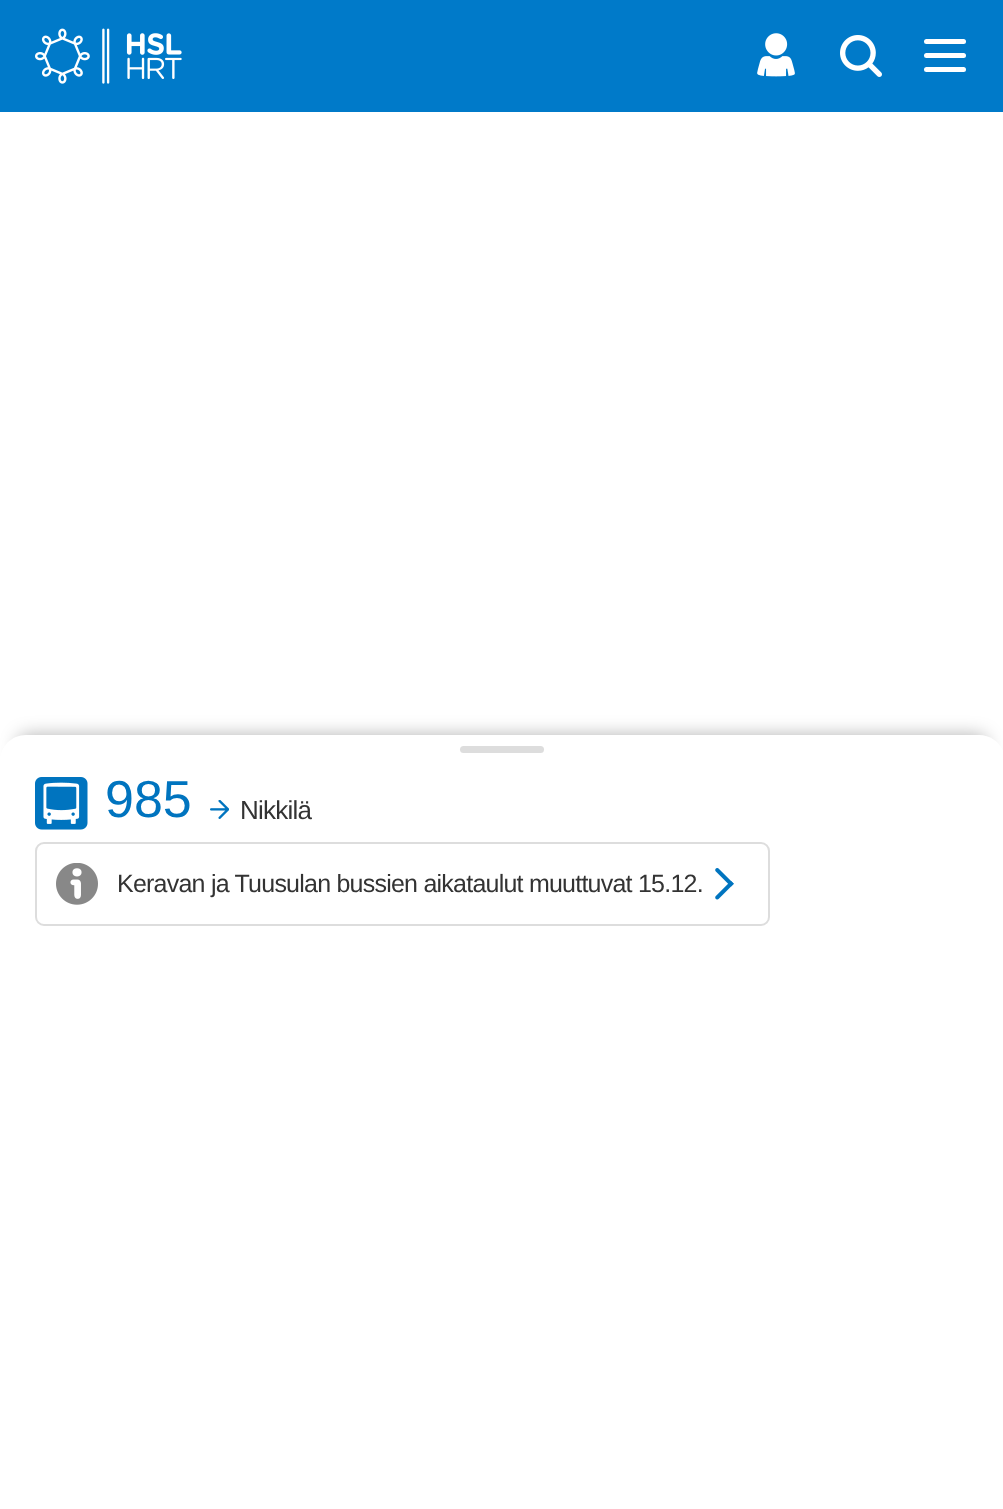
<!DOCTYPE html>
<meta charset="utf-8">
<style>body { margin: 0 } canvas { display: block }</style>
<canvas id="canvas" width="1003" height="1509"></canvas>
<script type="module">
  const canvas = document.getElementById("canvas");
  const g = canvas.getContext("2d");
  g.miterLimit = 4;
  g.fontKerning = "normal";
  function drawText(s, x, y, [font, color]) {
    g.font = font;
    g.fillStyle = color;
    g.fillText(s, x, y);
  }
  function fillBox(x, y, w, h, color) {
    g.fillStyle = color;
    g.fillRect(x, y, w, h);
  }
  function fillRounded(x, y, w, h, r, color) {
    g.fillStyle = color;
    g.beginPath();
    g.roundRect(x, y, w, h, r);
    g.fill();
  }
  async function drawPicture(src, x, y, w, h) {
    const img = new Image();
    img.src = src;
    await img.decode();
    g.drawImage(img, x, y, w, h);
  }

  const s1 = ["52px Liberation Sans", "#0074BF"];
  const s2 = ["26px Liberation Sans", "#333333"];
  const s3 = ["25px Liberation Sans", "#333333"];

  fillBox(0, 0, 1003, 1509, "#FFFFFF");
  fillBox(0, 0, 1003, 112, "#007AC9");
  await drawPicture("pic1.png", 35, 28, 147, 56);
  await drawPicture("pic2.png", 757, 33, 38, 44);
  await drawPicture("pic3.png", 840, 35, 42, 42);
  fillRounded(924, 39, 42, 5, 2.5, "#FFFFFF");
  fillRounded(924, 53, 42, 5, 2.5, "#FFFFFF");
  fillRounded(924, 67, 42, 5, 2.5, "#FFFFFF");
  g.fillStyle = "rgba(0, 0, 0, 0.3)";
  g.filter = "blur(9px)";
  g.beginPath();
  g.roundRect(18, 735, 969, 168, 9);
  g.fill();
  g.filter = "none";
  g.fillStyle = "#FFFFFF";
  g.beginPath();
  g.moveTo(26, 735);
  g.lineTo(979, 735);
  g.bezierCurveTo(993.5, 735, 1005, 746.5, 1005, 761);
  g.lineTo(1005, 938);
  g.lineTo(0, 938);
  g.lineTo(0, 761);
  g.bezierCurveTo(0, 746.5, 11.5, 735, 26, 735);
  g.closePath();
  g.fill();
  fillRounded(460, 746, 84, 7, 3.5, "#DDDDDD");
  await drawPicture("pic4.png", 35, 777, 53, 53);
  drawText("985", 105, 817, s1);
  await drawPicture("pic5.png", 210, 800, 19, 19);
  g.letterSpacing = "-0.75px";
  drawText("Nikkilä", 240, 819, s2);
  g.beginPath();
  g.roundRect(36, 843, 733, 82, 8);
  g.strokeStyle = "#DDDDDD";
  g.lineWidth = 2;
  g.stroke();
  await drawPicture("pic6.png", 56, 863, 42, 42);
  g.letterSpacing = "-0.77px";
  drawText("Keravan ja Tuusulan bussien aikataulut muuttuvat 15.12.", 117, 892, s3);
  await drawPicture("pic7.png", 715, 868, 19, 32);
</script>
